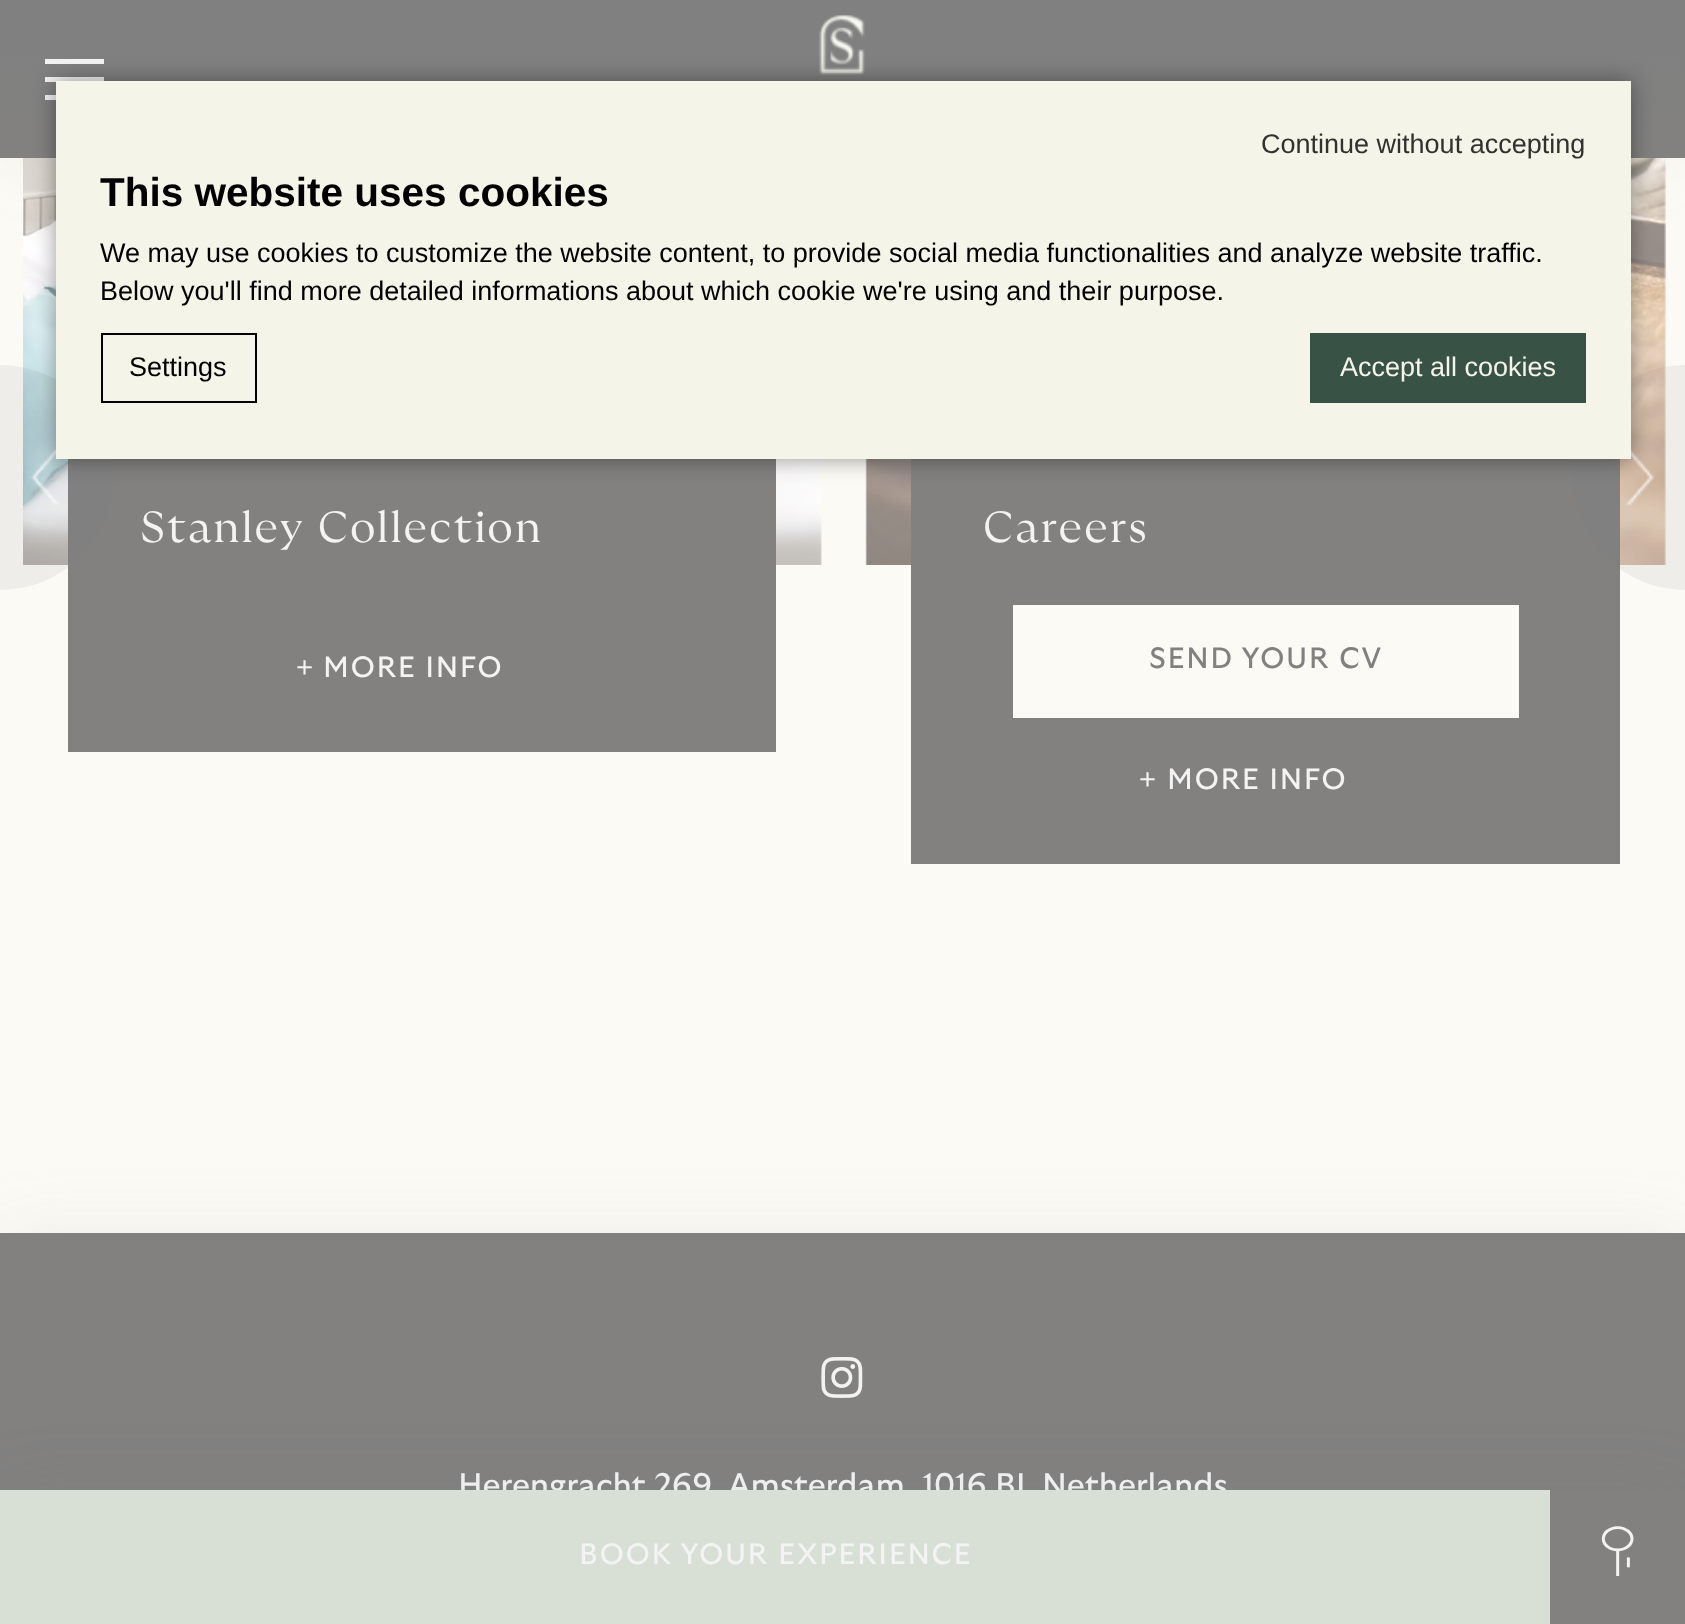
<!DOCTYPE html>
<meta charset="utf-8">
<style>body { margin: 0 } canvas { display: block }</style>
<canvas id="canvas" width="1685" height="1624"></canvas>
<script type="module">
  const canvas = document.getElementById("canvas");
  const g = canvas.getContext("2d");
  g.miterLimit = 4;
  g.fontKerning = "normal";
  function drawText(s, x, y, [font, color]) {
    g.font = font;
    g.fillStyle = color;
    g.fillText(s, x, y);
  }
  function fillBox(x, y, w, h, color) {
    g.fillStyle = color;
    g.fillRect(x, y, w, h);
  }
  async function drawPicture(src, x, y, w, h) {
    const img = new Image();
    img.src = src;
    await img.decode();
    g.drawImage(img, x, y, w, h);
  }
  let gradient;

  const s1 = ["27px Liberation Sans", "#31312E"];
  const s2 = ["bold 40.5px Liberation Sans", "#000000"];
  const s3 = ["27px Liberation Sans", "#000000"];
  const s4 = ["27px Liberation Sans", "#F5F4E8"];
  const s5 = ["300 43.25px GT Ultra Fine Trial", "#F3F3F3"];
  const s6 = ["29.25px Liberation Sans", "#F3F3F3"];
  const s7 = ["29.25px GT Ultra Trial", "#F3F3F3"];
  const s8 = ["29.25px GT Ultra Trial", "#828180"];
  const s9 = ["32.5px GT Ultra Trial", "#F3F3F3"];
  const s10 = ["56px Nuosu SIL", "#F3F3F3"];

  fillBox(0, 0, 1685, 1624, "#FBFAF5");
  await drawPicture("pic4.png", 23, 158, 799, 407);
  fillBox(866, 158, 799, 407, "#E6E6E6");
  await drawPicture("pic5.png", 865, 158, 801, 407);
  g.fillStyle = "rgba(128, 128, 128, 0.1)";
  g.filter = "blur(34px)";
  g.beginPath();
  g.rect(0, 0, 1685, 158);
  g.fill();
  g.filter = "none";
  gradient = g.createLinearGradient(843, 0, 843, 158);
  gradient.addColorStop(0, "#808080");
  gradient.addColorStop(1, "#828180");
  g.fillStyle = gradient;
  g.fillRect(0, 0, 1685, 158);
  fillBox(45, 59, 59, 5, "#F3F3F3");
  fillBox(45, 95, 11, 5, "#F3F3F3");
  fillBox(45, 77, 59, 5, "#F3F3F3");
  await drawPicture("pic1.png", 819, 15, 46, 61);
  fillBox(68, 459, 708, 293, "#828180");
  g.fillStyle = "rgba(128, 128, 128, 0.1)";
  g.beginPath();
  g.roundRect(0, 365, 113, 225, [0, 112.5, 112.5, 0]);
  g.fill();
  await drawPicture("pic2.png", 31, 448, 28, 57);
  fillBox(911, 459, 709, 405, "#828180");
  g.fillStyle = "rgba(128, 128, 128, 0.1)";
  g.beginPath();
  g.roundRect(1573, 365, 112, 225, [112, 0, 0, 112]);
  g.fill();
  await drawPicture("pic3.png", 1626, 448, 29, 59);
  g.fillStyle = "rgba(0, 0, 0, 0.4)";
  g.filter = "blur(11px)";
  g.beginPath();
  g.rect(56, 81, 1575, 378);
  g.fill();
  g.filter = "none";
  fillBox(56, 81, 1575, 378, "#F5F4E8");
  drawText("Continue without accepting", 1261, 153, s1);
  drawText("This website uses cookies", 100, 206, s2);
  drawText("We may use cookies to customize the website content, to provide social media functionalities and analyze website traffic.", 100, 262, s3);
  drawText("Below you'll find more detailed informations about which cookie we're using and their purpose.", 100, 300, s3);
  g.strokeStyle = "#000000";
  g.lineWidth = 2;
  g.strokeRect(102, 334, 154, 68);
  drawText("Settings", 129, 376, s3);
  fillBox(1310, 333, 276, 70, "#385246");
  drawText("Accept all cookies", 1340, 376, s4);
  g.letterSpacing = "2.2px";
  drawText("Stanley Collection", 140, 542, s5);
  g.letterSpacing = "1.5px";
  drawText("+", 296, 677, s6);
  drawText("MORE INFO", 323, 677, s7);
  g.letterSpacing = "2.2px";
  drawText("Careers", 983, 542, s5);
  fillBox(1013, 605, 506, 113, "#FBFAF5");
  g.letterSpacing = "1.5px";
  drawText("SEND YOUR CV", 1149, 668, s8);
  drawText("+", 1139, 789, s6);
  drawText("MORE INFO", 1167, 789, s7);
  g.fillStyle = "rgba(128, 128, 128, 0.1)";
  g.filter = "blur(34px)";
  g.beginPath();
  g.rect(0, 1233, 1685, 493);
  g.fill();
  g.filter = "none";
  fillBox(0, 1233, 1685, 257, "#828180");
  await drawPicture("pic6.png", 821, 1357, 42, 41);
  g.letterSpacing = "0px";
  drawText("Herengracht 269", 458, 1496, s9);
  drawText("Amsterdam", 728, 1496, s9);
  drawText("1016 BJ", 922, 1496, s9);
  drawText("Netherlands", 1042, 1496, s9);
  g.fillStyle = "rgba(128, 128, 128, 0.1)";
  g.filter = "blur(34px)";
  g.beginPath();
  g.rect(0, 1490, 1685, 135);
  g.fill();
  g.filter = "none";
  fillBox(1550, 1490, 135, 134, "#828180");
  fillBox(0, 1490, 1550, 134, "#D8DFD5");
  g.letterSpacing = "1.5px";
  drawText("BOOK YOUR EXPERIENCE", 579, 1564, s7);
  g.letterSpacing = "0px";
  drawText("ꀬ", 1596, 1576, s10);
</script>
